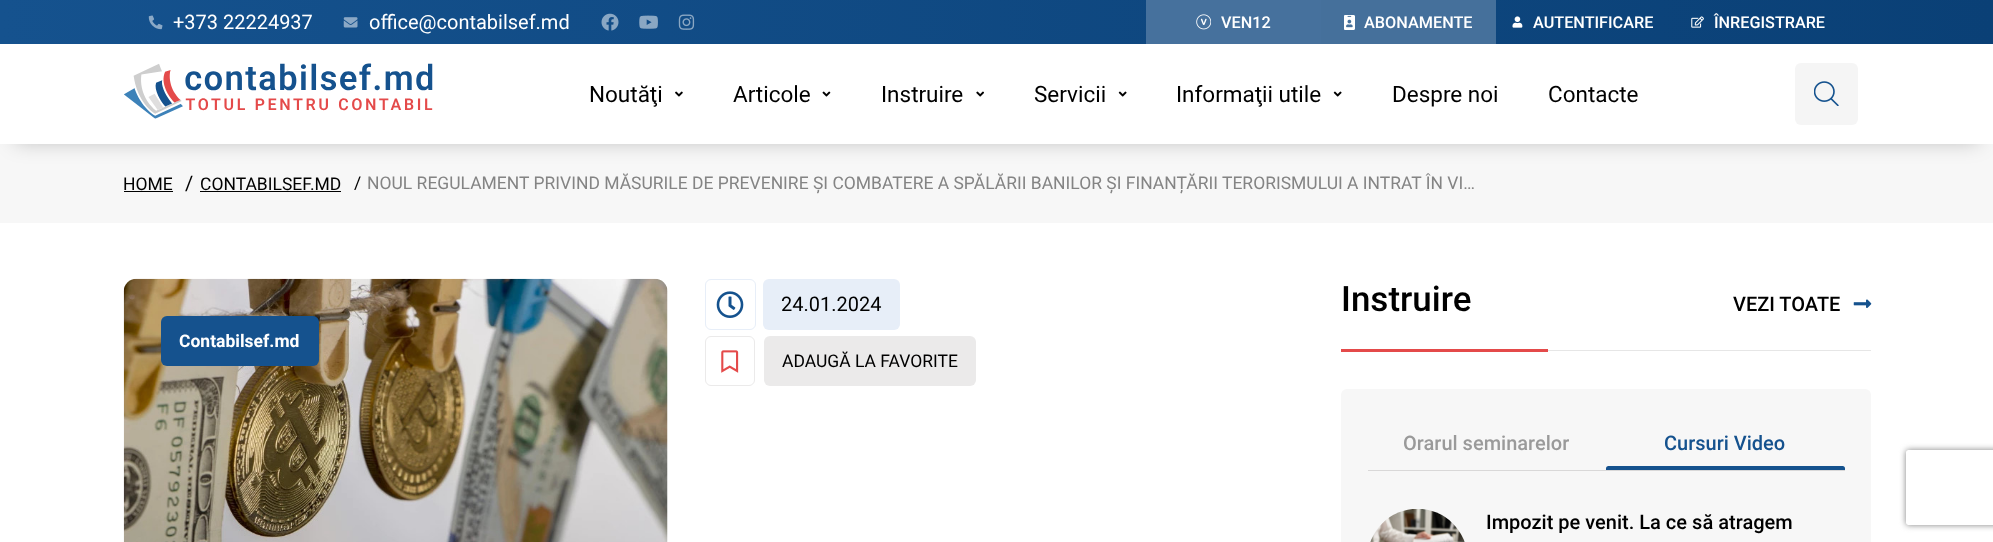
<!DOCTYPE html>
<meta charset="utf-8">
<style>body { margin: 0 } canvas { display: block }</style>
<canvas id="canvas" width="1993" height="542"></canvas>
<script type="module">
  const canvas = document.getElementById("canvas");
  const g = canvas.getContext("2d");
  g.miterLimit = 4;
  g.fontKerning = "normal";
  function drawText(s, x, y, [font, color]) {
    g.font = font;
    g.fillStyle = color;
    g.fillText(s, x, y);
  }
  function fillBox(x, y, w, h, color) {
    g.fillStyle = color;
    g.fillRect(x, y, w, h);
  }
  function fillRounded(x, y, w, h, r, color) {
    g.fillStyle = color;
    g.beginPath();
    g.roundRect(x, y, w, h, r);
    g.fill();
  }
  async function drawPicture(src, x, y, w, h) {
    const img = new Image();
    img.src = src;
    await img.decode();
    g.drawImage(img, x, y, w, h);
  }
  let gradient;

  const s1 = ["20px Roboto", "#FFFFFF"];
  const s2 = ["500 16.25px Roboto", "#FFFFFF"];
  const s3 = ["22.5px Roboto", "#000000"];
  const s4 = ["17.5px Roboto", "#000000"];
  const s5 = ["20px Roboto", "#000000"];
  const s6 = ["17.5px Roboto", "#848484"];
  const s7 = ["bold 17.5px Roboto", "#FFFFFF"];
  const s8 = ["500 35px Roboto", "#000000"];
  const s9 = ["500 20px Roboto", "#000000"];
  const s10 = ["500 20px Roboto", "#9A9A9A"];
  const s11 = ["500 20px Roboto", "#15528E"];

  fillBox(0, 0, 1993, 542, "#FFFFFF");
  fillBox(0, 144, 1993, 79, "#F7F7F7");
  g.fillStyle = "rgba(0, 0, 0, 0.25)";
  g.filter = "blur(10.5px)";
  g.beginPath();
  g.rect(15, 28, 1964, 113);
  g.fill();
  g.filter = "none";
  fillBox(0, 44, 1993, 100, "#FFFFFF");
  gradient = g.createLinearGradient(0, 22, 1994, 22);
  gradient.addColorStop(0, "#15528E");
  gradient.addColorStop(1, "#0A4076");
  g.fillStyle = gradient;
  g.fillRect(0, 0, 1993, 44);
  await drawPicture("pic1.png", 148, 15, 15, 15);
  drawText("+373 22224937", 173, 29, s1);
  await drawPicture("pic2.png", 343, 17, 15, 11);
  drawText("office@contabilsef.md", 369, 29, s1);
  await drawPicture("pic3.png", 601, 13, 18, 18);
  await drawPicture("pic4.png", 639, 15, 19, 14);
  await drawPicture("pic5.png", 678, 14, 17, 16);
  fillBox(1146, 0, 175, 44, "#46719D");
  await drawPicture("pic6.png", 1196, 14, 15, 16);
  drawText("VEN12", 1221, 28, s2);
  fillBox(1321, 0, 175, 44, "#45709B");
  await drawPicture("pic7.png", 1344, 15, 11, 15);
  drawText("ABONAMENTE", 1364, 28, s2);
  await drawPicture("pic8.png", 1512, 16, 11, 12);
  drawText("AUTENTIFICARE", 1533, 28, s2);
  await drawPicture("pic9.png", 1691, 16, 13, 12);
  drawText("ÎNREGISTRARE", 1714, 28, s2);
  await drawPicture("pic10.png", 124, 63, 309, 56);
  drawText("Noutăţi", 589, 102, s3);
  await drawPicture("pic11.png", 675, 91, 8, 6);
  drawText("Articole", 733, 102, s3);
  await drawPicture("pic12.png", 822, 91, 9, 6);
  drawText("Instruire", 881, 102, s3);
  await drawPicture("pic13.png", 976, 91, 8, 6);
  drawText("Servicii", 1034, 102, s3);
  await drawPicture("pic14.png", 1118, 91, 9, 6);
  drawText("Informaţii utile", 1176, 102, s3);
  await drawPicture("pic14.png", 1333, 91, 9, 6);
  drawText("Despre noi", 1392, 102, s3);
  drawText("Contacte", 1548, 102, s3);
  fillRounded(1795, 63, 63, 62, 6, "#F5F5F5");
  await drawPicture("pic15.png", 1814, 81, 25, 25);
  drawText("HOME", 123, 190, s4);
  fillBox(124, 191, 49, 1, "#000000");
  drawText("/", 185, 190, s5);
  drawText("CONTABILSEF.MD", 200, 190, s4);
  fillBox(200, 191, 141, 1, "#000000");
  drawText("/", 354, 189, s4);
  drawText("NOUL REGULAMENT PRIVIND MĂSURILE DE PREVENIRE ȘI COMBATERE A SPĂLĂRII BANILOR ȘI FINANȚĂRII TERORISMULUI A INTRAT ÎN VI…", 367, 189, s6);
  await drawPicture("pic16.png", 123, 278, 545, 264);
  fillRounded(161, 316, 158, 50, 6, "#15528E");
  drawText("Contabilsef.md", 179, 347, s7);
  g.beginPath();
  g.roundRect(705.5, 279.5, 50, 50, 5.5);
  g.strokeStyle = "#E7EEF8";
  g.stroke();
  await drawPicture("pic17.png", 716, 291, 28, 27);
  fillRounded(763, 279, 137, 51, 6, "#E7EEF8");
  drawText("24.01.2024", 781, 311, s5);
  g.beginPath();
  g.roundRect(705.5, 336.5, 49, 49, 5.5);
  g.strokeStyle = "#EBEAEA";
  g.stroke();
  await drawPicture("pic18.png", 721, 350, 18, 23);
  fillRounded(764, 336, 212, 50, 6, "#EBEAEA");
  drawText("ADAUGĂ LA FAVORITE", 782, 367, s4);
  fillBox(1548, 350, 323, 1, "#E6E6E6");
  fillBox(1341, 349, 207, 3, "#E44A4A");
  drawText("Instruire", 1341, 311, s8);
  drawText("VEZI TOATE", 1733, 311, s9);
  await drawPicture("pic19.png", 1853, 299, 19, 9);
  fillRounded(1341, 389, 530, 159, 6, "#F7F7F7");
  fillBox(1368, 470, 477, 1, "#D9D8D8");
  drawText("Orarul seminarelor", 1403, 450, s10);
  drawText("Cursuri Video", 1664, 450, s11);
  g.beginPath();
  g.roundRect(1606, 466, 239, 4, [2.5, 2.5, 0, 0]);
  g.fill();
  await drawPicture("pic20.png", 1370, 509, 95, 33);
  drawText("Impozit pe venit. La ce să atragem", 1486, 529, s9);
  g.save();
  g.beginPath();
  g.moveTo(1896, 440);
  g.lineTo(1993, 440);
  g.lineTo(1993, 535);
  g.lineTo(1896, 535);
  g.closePath();
  g.moveTo(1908.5, 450);
  g.lineTo(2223.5, 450);
  g.bezierCurveTo(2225, 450, 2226, 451, 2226, 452.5);
  g.lineTo(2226, 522.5);
  g.bezierCurveTo(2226, 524, 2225, 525, 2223.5, 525);
  g.lineTo(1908.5, 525);
  g.bezierCurveTo(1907, 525, 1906, 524, 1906, 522.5);
  g.lineTo(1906, 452.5);
  g.bezierCurveTo(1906, 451, 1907, 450, 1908.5, 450);
  g.closePath();
  g.clip("evenodd");
  g.fillStyle = "#808080";
  g.filter = "blur(3px)";
  g.beginPath();
  g.roundRect(1906, 450, 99, 75, 2.5);
  g.fill();
  g.filter = "none";
  g.restore();
</script>
